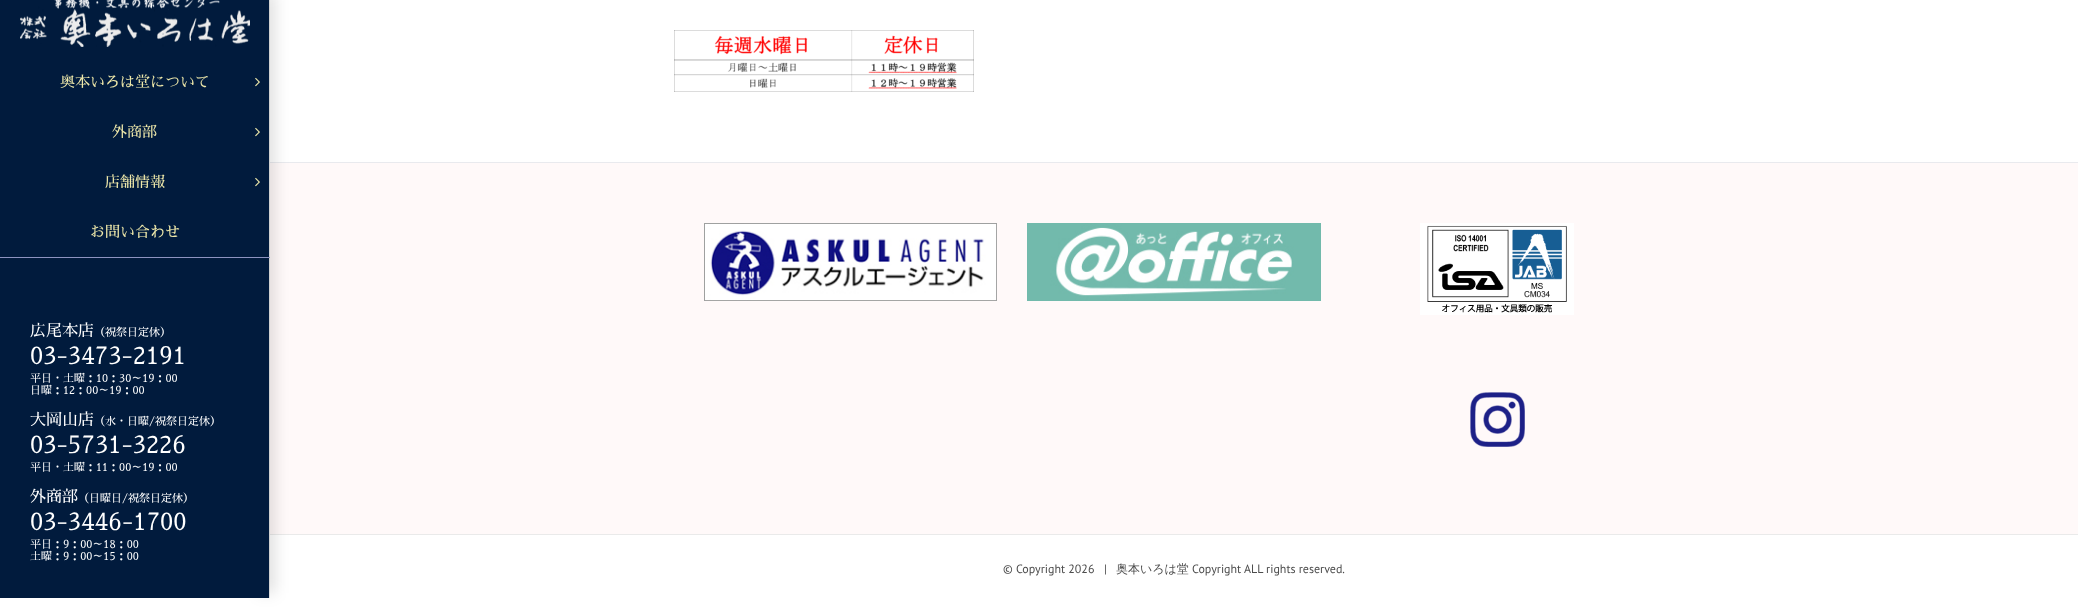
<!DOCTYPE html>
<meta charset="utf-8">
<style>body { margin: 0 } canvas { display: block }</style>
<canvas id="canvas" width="2078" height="610"></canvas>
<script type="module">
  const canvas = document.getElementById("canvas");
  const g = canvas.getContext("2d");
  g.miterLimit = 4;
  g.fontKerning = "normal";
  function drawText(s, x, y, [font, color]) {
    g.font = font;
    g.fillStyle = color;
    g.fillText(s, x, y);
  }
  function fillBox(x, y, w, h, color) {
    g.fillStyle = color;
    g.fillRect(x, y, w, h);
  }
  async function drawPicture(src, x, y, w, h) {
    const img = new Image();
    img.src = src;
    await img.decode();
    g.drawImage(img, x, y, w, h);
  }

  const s1 = ["15px Sawarabi Mincho", "#EEE8AA"];
  const s2 = ["16px Sawarabi Mincho", "#FFFFFF"];
  const s3 = ["11px Sawarabi Mincho", "#FFFFFF"];
  const s4 = ["24px Sawarabi Mincho", "#FFFFFF"];
  const s5 = ["12px PT Sans", "#4C4C4C"];
  const s6 = ["500 12px WenQuanYi Zen Hei", "#4C4C4C"];

  fillBox(0, 0, 2078, 610, "#FFFFFF");
  await drawPicture("pic1.png", 674, 30, 300, 62);
  fillBox(0, 0, 269, 598, "#011B3D");
  fillBox(269, 0, 1, 598, "#E5E5E5");
  fillBox(270, 163, 1808, 371, "#FFF9F9");
  fillBox(270, 162, 1808, 1, "#E9EAEE");
  fillBox(270, 534, 1808, 1, "#EAEAEA");
  g.save();
  g.beginPath();
  g.moveTo(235, 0);
  g.lineTo(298, 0);
  g.lineTo(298, 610);
  g.lineTo(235, 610);
  g.closePath();
  g.moveTo(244, -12);
  g.lineTo(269, -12);
  g.lineTo(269, 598);
  g.lineTo(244, 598);
  g.closePath();
  g.clip("evenodd");
  g.fillStyle = "rgba(0, 0, 0, 0.14)";
  g.filter = "blur(7.5px)";
  g.beginPath();
  g.rect(259, -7, 15, 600);
  g.fill();
  g.filter = "none";
  g.restore();
  await drawPicture("pic2.png", 20, 0, 230, 47);
  drawText("奥本いろは堂について", 60, 87, s1);
  await drawPicture("pic3.png", 255, 77, 5, 10);
  drawText("外商部", 112, 137, s1);
  await drawPicture("pic3.png", 255, 127, 5, 10);
  drawText("店舗情報", 105, 187, s1);
  await drawPicture("pic3.png", 255, 177, 5, 10);
  drawText("お問い合わせ", 90, 237, s1);
  fillBox(0, 257, 270, 1, "#8D93C0");
  drawText("広尾本店", 30, 336, s2);
  drawText("（祝祭日定休）", 94, 336, s3);
  drawText("03-3473-2191", 30, 364, s4);
  drawText("平日・土曜：10：30～19：00", 30, 382, s3);
  drawText("日曜：12：00～19：00", 30, 394, s3);
  drawText("大岡山店", 30, 425, s2);
  drawText("（水・日曜/祝祭日定休）", 94, 425, s3);
  drawText("03-5731-3226", 30, 453, s4);
  drawText("平日・土曜：11：00～19：00", 30, 471, s3);
  drawText("外商部", 30, 502, s2);
  drawText("（日曜日/祝祭日定休）", 78, 502, s3);
  drawText("03-3446-1700", 30, 530, s4);
  drawText("平日：9：00～18：00", 30, 548, s3);
  drawText("土曜：9：00～15：00", 30, 560, s3);
  await drawPicture("pic4.png", 704, 223, 293, 78);
  await drawPicture("pic5.png", 1027, 223, 294, 78);
  await drawPicture("pic6.png", 1420, 223, 154, 92);
  await drawPicture("pic7.png", 1470, 392, 55, 55);
  drawText("© Copyright 2026   |", 1003, 573, s5);
  drawText("奥本いろは堂", 1116, 573, s6);
  drawText("Copyright ALL rights reserved.", 1192, 573, s5);
</script>
